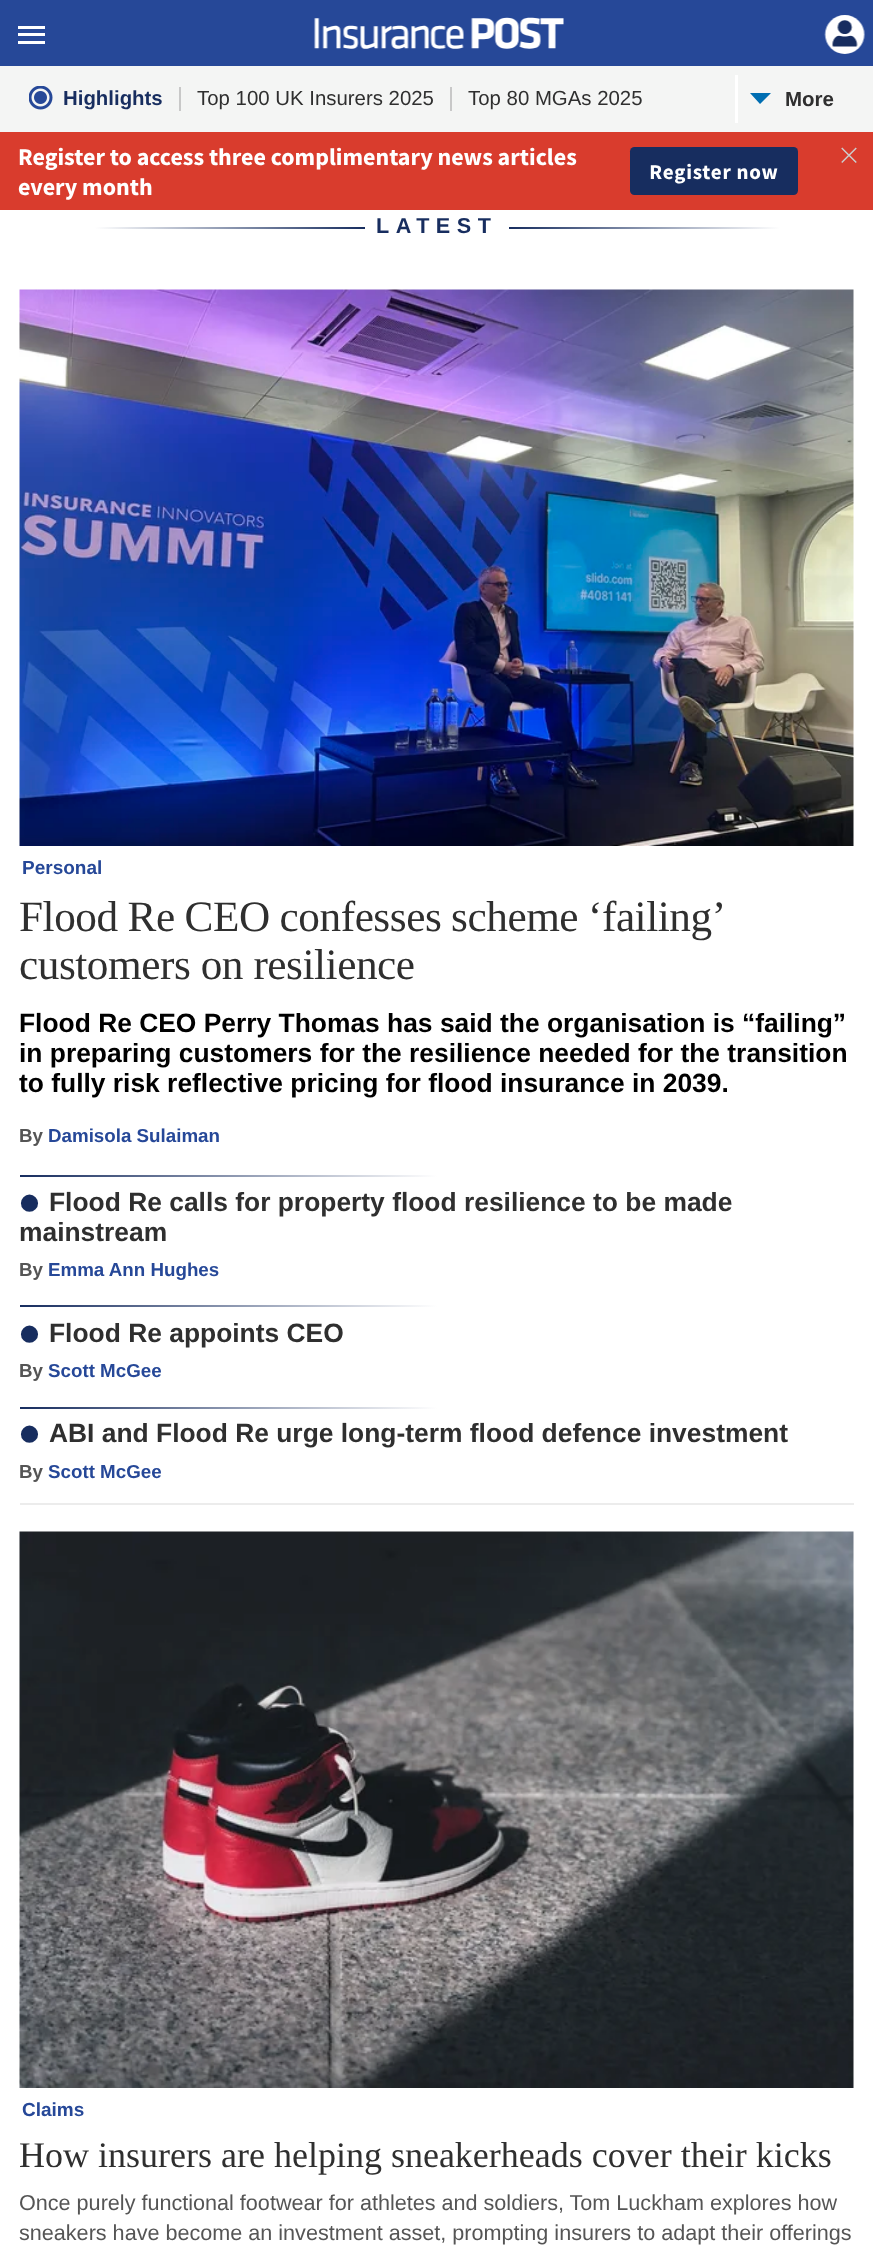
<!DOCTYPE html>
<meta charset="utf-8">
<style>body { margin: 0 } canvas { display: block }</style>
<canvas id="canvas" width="873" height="2258"></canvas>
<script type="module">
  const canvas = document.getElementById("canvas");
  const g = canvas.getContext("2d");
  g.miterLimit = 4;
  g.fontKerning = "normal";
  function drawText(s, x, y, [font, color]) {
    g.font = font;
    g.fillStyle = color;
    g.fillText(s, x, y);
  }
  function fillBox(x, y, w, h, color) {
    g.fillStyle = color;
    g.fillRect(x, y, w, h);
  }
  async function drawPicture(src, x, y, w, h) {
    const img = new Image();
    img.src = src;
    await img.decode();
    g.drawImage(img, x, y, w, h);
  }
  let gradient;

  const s1 = ["bold 20.4px Liberation Sans", "#172D5F"];
  const s2 = ["20.4px Liberation Sans", "#2F2F2F"];
  const s3 = ["bold 20.5px Liberation Sans", "#2F2F2F"];
  const s4 = ["bold 21.6px Liberation Sans", "#172D5F"];
  const s5 = ["bold 19px Liberation Sans", "#264898"];
  const s6 = ["43.25px Liberation Serif", "#2F2F2F"];
  const s7 = ["bold 26.4px Liberation Sans", "#000000"];
  const s8 = ["bold 18.75px Liberation Sans", "#555555"];
  const s9 = ["bold 18.75px Liberation Sans", "#264898"];
  const s10 = ["bold 60px Liberation Sans", "#172D5F"];
  const s11 = ["bold 26.4px Liberation Sans", "#2F2F2F"];
  const s12 = ["36px Liberation Serif", "#2F2F2F"];
  const s13 = ["21.6px Liberation Sans", "#555555"];

  fillBox(0, 0, 873, 2258, "#FFFFFF");
  fillBox(0, 0, 873, 66, "#264898");
  fillBox(18, 33, 27, 3, "#FFFFFF");
  fillBox(18, 26, 27, 3, "#FFFFFF");
  fillBox(18, 41, 27, 3, "#FFFFFF");
  await drawPicture("pic1.png", 314, 17, 250, 32);
  await drawPicture("pic2.png", 824, 15, 41, 39);
  fillBox(0, 66, 873, 66, "#F4F5F4");
  await drawPicture("pic3.png", 29, 86, 24, 24);
  drawText("Highlights", 63, 105, s1);
  fillBox(179, 87, 2, 24, "#C8C8C8");
  drawText("Top 100 UK Insurers 2025", 197, 105, s2);
  fillBox(450, 87, 2, 24, "#C8C8C8");
  drawText("Top 80 MGAs 2025", 468, 105, s2);
  fillBox(735, 75, 3, 48, "#FFFFFF");
  g.save();
  g.beginPath();
  g.rect(750, 93, 21, 12);
  g.clip();
  g.fillStyle = "#006EB2";
  g.beginPath();
  g.moveTo(771, 156);
  g.lineTo(750, 156);
  g.lineTo(761, 145);
  g.closePath();
  g.moveTo(750, 93);
  g.lineTo(771, 93);
  g.lineTo(760, 104);
  g.closePath();
  g.fill();
  g.restore();
  drawText("More", 785, 106, s3);
  await drawPicture("pic4.png", 0, 132, 873, 78);
  gradient = g.createLinearGradient(365, 227, 95, 227);
  gradient.addColorStop(0, "#172D5F");
  gradient.addColorStop(1, "#FFFFFF");
  g.fillStyle = gradient;
  g.fillRect(95, 227, 270, 2);
  g.letterSpacing = "6.5px";
  drawText("LATEST", 376, 233, s4);
  gradient = g.createLinearGradient(509, 227, 780, 227);
  gradient.addColorStop(0, "#172D5F");
  gradient.addColorStop(1, "#FFFFFF");
  g.fillStyle = gradient;
  g.fillRect(509, 227, 271, 2);
  await drawPicture("pic5.png", 19, 289, 835, 557);
  g.letterSpacing = "0px";
  drawText("Personal", 22, 874, s5);
  g.letterSpacing = "-0.45px";
  g.wordSpacing = "-0.5px";
  drawText("Flood Re CEO confesses scheme ‘failing’", 19, 931, s6);
  g.wordSpacing = "0px";
  drawText("customers on resilience", 19, 979, s6);
  g.letterSpacing = "0px";
  drawText("Flood Re CEO Perry Thomas has said the organisation is “failing”", 19, 1032, s7);
  drawText("in preparing customers for the resilience needed for the transition", 19, 1062, s7);
  drawText("to fully risk reflective pricing for flood insurance in 2039.", 19, 1092, s7);
  drawText("By", 19, 1142, s8);
  drawText("Damisola Sulaiman", 48, 1142, s9);
  gradient = g.createLinearGradient(20, 1175, 437, 1175);
  gradient.addColorStop(0, "#172D5F");
  gradient.addColorStop(1, "#FFFFFF");
  g.fillStyle = gradient;
  g.fillRect(20, 1175, 417, 2);
  drawText("•", 19, 1223, s10);
  drawText("Flood Re calls for property flood resilience to be made", 49, 1211, s11);
  drawText("mainstream", 19, 1241, s11);
  drawText("By", 19, 1276, s8);
  drawText("Emma Ann Hughes", 48, 1276, s9);
  gradient = g.createLinearGradient(20, 1306, 437, 1306);
  gradient.addColorStop(0, "#172D5F");
  gradient.addColorStop(1, "#FFFFFF");
  g.fillStyle = gradient;
  g.fillRect(20, 1305, 417, 2);
  drawText("•", 19, 1354, s10);
  drawText("Flood Re appoints CEO", 49, 1342, s11);
  drawText("By", 19, 1377, s8);
  drawText("Scott McGee", 48, 1377, s9);
  gradient = g.createLinearGradient(20, 1408, 437, 1408);
  gradient.addColorStop(0, "#172D5F");
  gradient.addColorStop(1, "#FFFFFF");
  g.fillStyle = gradient;
  g.fillRect(20, 1407, 417, 2);
  drawText("•", 19, 1454, s10);
  drawText("ABI and Flood Re urge long-term flood defence investment", 49, 1442, s11);
  drawText("By", 19, 1478, s8);
  drawText("Scott McGee", 48, 1478, s9);
  fillBox(20, 1503, 834, 2, "#ECECEC");
  await drawPicture("pic6.png", 19, 1531, 835, 557);
  drawText("Claims", 22, 2116, s5);
  drawText("How insurers are helping sneakerheads cover their kicks", 19, 2167, s12);
  drawText("Once purely functional footwear for athletes and soldiers, Tom Luckham explores how", 19, 2210, s13);
  drawText("sneakers have become an investment asset, prompting insurers to adapt their offerings", 19, 2240, s13);
</script>
